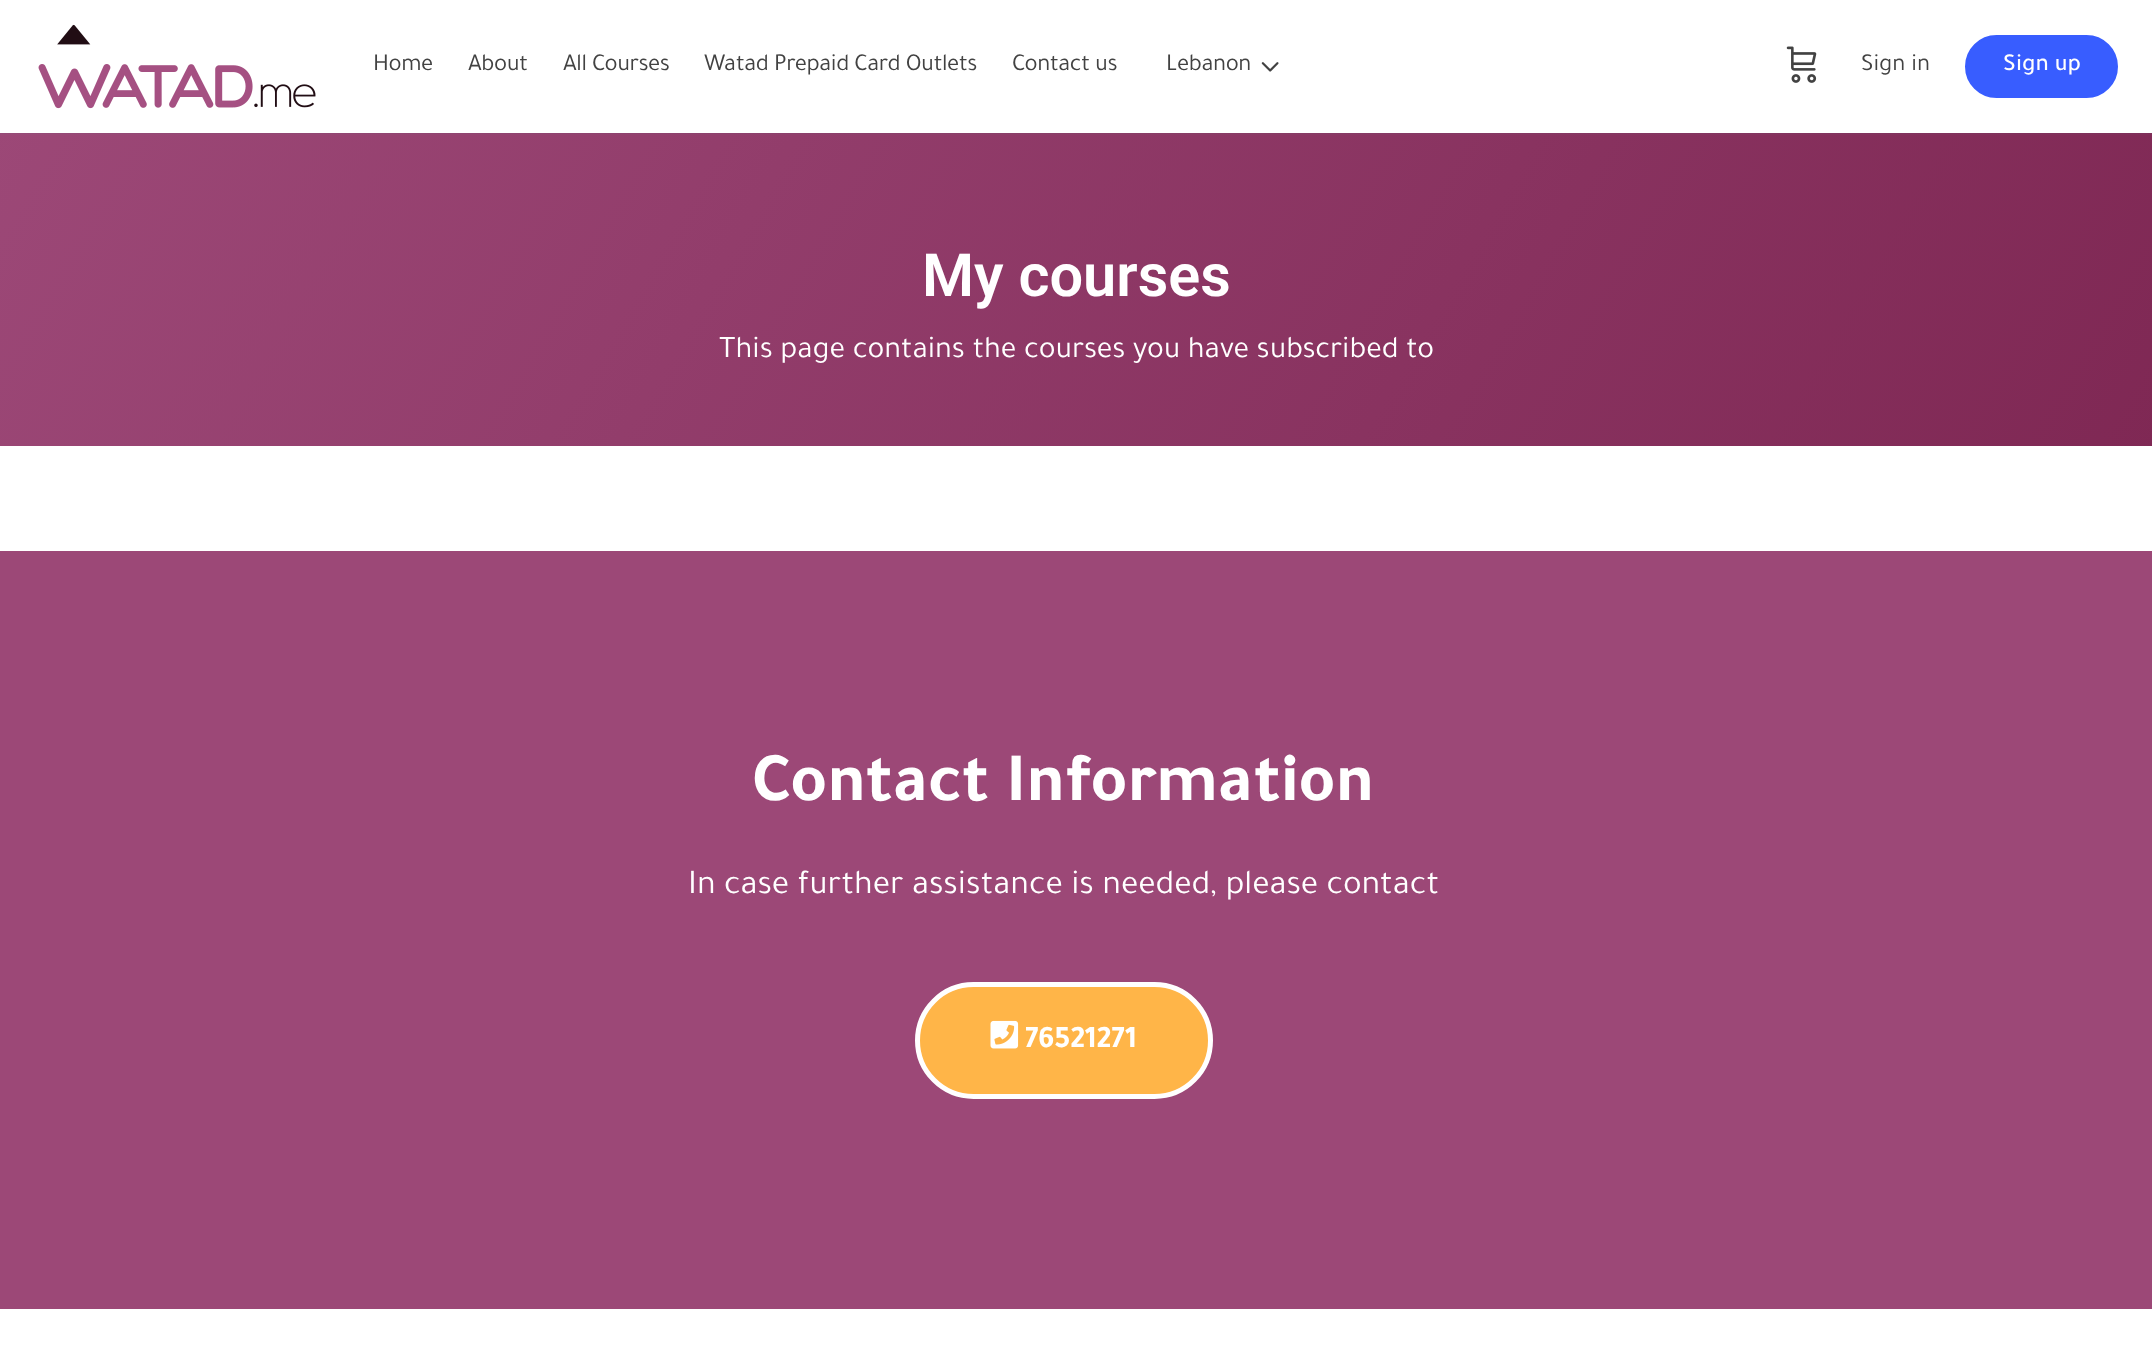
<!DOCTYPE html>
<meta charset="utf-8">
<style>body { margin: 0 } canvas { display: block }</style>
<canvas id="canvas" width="2152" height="1360"></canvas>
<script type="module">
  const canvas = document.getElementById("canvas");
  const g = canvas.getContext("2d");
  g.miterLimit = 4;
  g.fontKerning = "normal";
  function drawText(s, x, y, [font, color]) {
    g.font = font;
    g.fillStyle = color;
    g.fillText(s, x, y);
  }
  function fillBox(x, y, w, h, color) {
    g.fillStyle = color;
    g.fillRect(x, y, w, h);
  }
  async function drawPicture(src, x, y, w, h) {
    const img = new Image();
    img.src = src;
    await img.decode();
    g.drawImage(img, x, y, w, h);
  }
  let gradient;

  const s1 = ["24.5px Tajawal", "#424242"];
  const s2 = ["500 24.5px Tajawal", "#FFFFFF"];
  const s3 = ["600 59.5px Roboto", "#FFFFFF"];
  const s4 = ["31.5px Tajawal", "#FFFFFF"];
  const s5 = ["bold 70px Tajawal", "#FFFFFF"];
  const s6 = ["35px Tajawal", "#FFFFFF"];
  const s7 = ["bold 31.5px Tajawal", "#FFFFFF"];

  fillBox(0, 0, 2152, 1360, "#FFFFFF");
  gradient = g.createLinearGradient(188, -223, 1964, 802);
  gradient.addColorStop(0, "#9C4877");
  gradient.addColorStop(1, "#7F2854");
  g.fillStyle = gradient;
  g.fillRect(0, 133, 2152, 313);
  g.fillStyle = "rgba(65, 71, 108, 0.15)";
  g.filter = "blur(1px)";
  g.beginPath();
  g.rect(0, 0, 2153, 133);
  g.fill();
  g.filter = "none";
  g.fillStyle = "rgba(139, 141, 157, 0.05)";
  g.beginPath();
  g.moveTo(0, 133);
  g.lineTo(0, 135);
  g.lineTo(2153, 135);
  g.lineTo(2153, 2);
  g.lineTo(2152, 2);
  g.lineTo(2152, 133);
  g.closePath();
  g.fill();
  fillBox(0, 0, 2152, 133, "#FFFFFF");
  await drawPicture("pic1.png", 38, 24, 278, 85);
  g.letterSpacing = "-0.4px";
  drawText("Home", 373, 70, s1);
  drawText("About", 468, 70, s1);
  drawText("All Courses", 563, 70, s1);
  drawText("Watad Prepaid Card Outlets", 704, 70, s1);
  drawText("Contact us", 1012, 70, s1);
  drawText("Lebanon", 1166, 70, s1);
  await drawPicture("pic2.png", 1261, 62, 18, 10);
  await drawPicture("pic3.png", 1786, 46, 31, 37);
  g.letterSpacing = "0px";
  drawText("Sign in", 1861, 70, s1);
  g.fillStyle = "#385DFF";
  g.beginPath();
  g.roundRect(1966, 36, 151, 61, 30.5);
  g.fill();
  g.strokeStyle = "#385DFF";
  g.lineWidth = 2;
  g.stroke();
  drawText("Sign up", 2003, 70, s2);
  drawText("My courses", 922, 296, s3);
  drawText("This page contains the courses you have subscribed to", 719, 357, s4);
  fillBox(0, 551, 2152, 758, "#9C4877");
  drawText("Contact Information", 752, 800, s5);
  drawText("In case further assistance is needed, please contact", 688, 893, s6);
  g.fillStyle = "#FFB548";
  g.beginPath();
  g.roundRect(917.5, 984.5, 293, 112, 56);
  g.fill();
  g.strokeStyle = "#FFFFFF";
  g.lineWidth = 5;
  g.stroke();
  await drawPicture("pic4.png", 990, 1020, 29, 29);
  drawText("76521271", 1025, 1047, s7);
</script>
